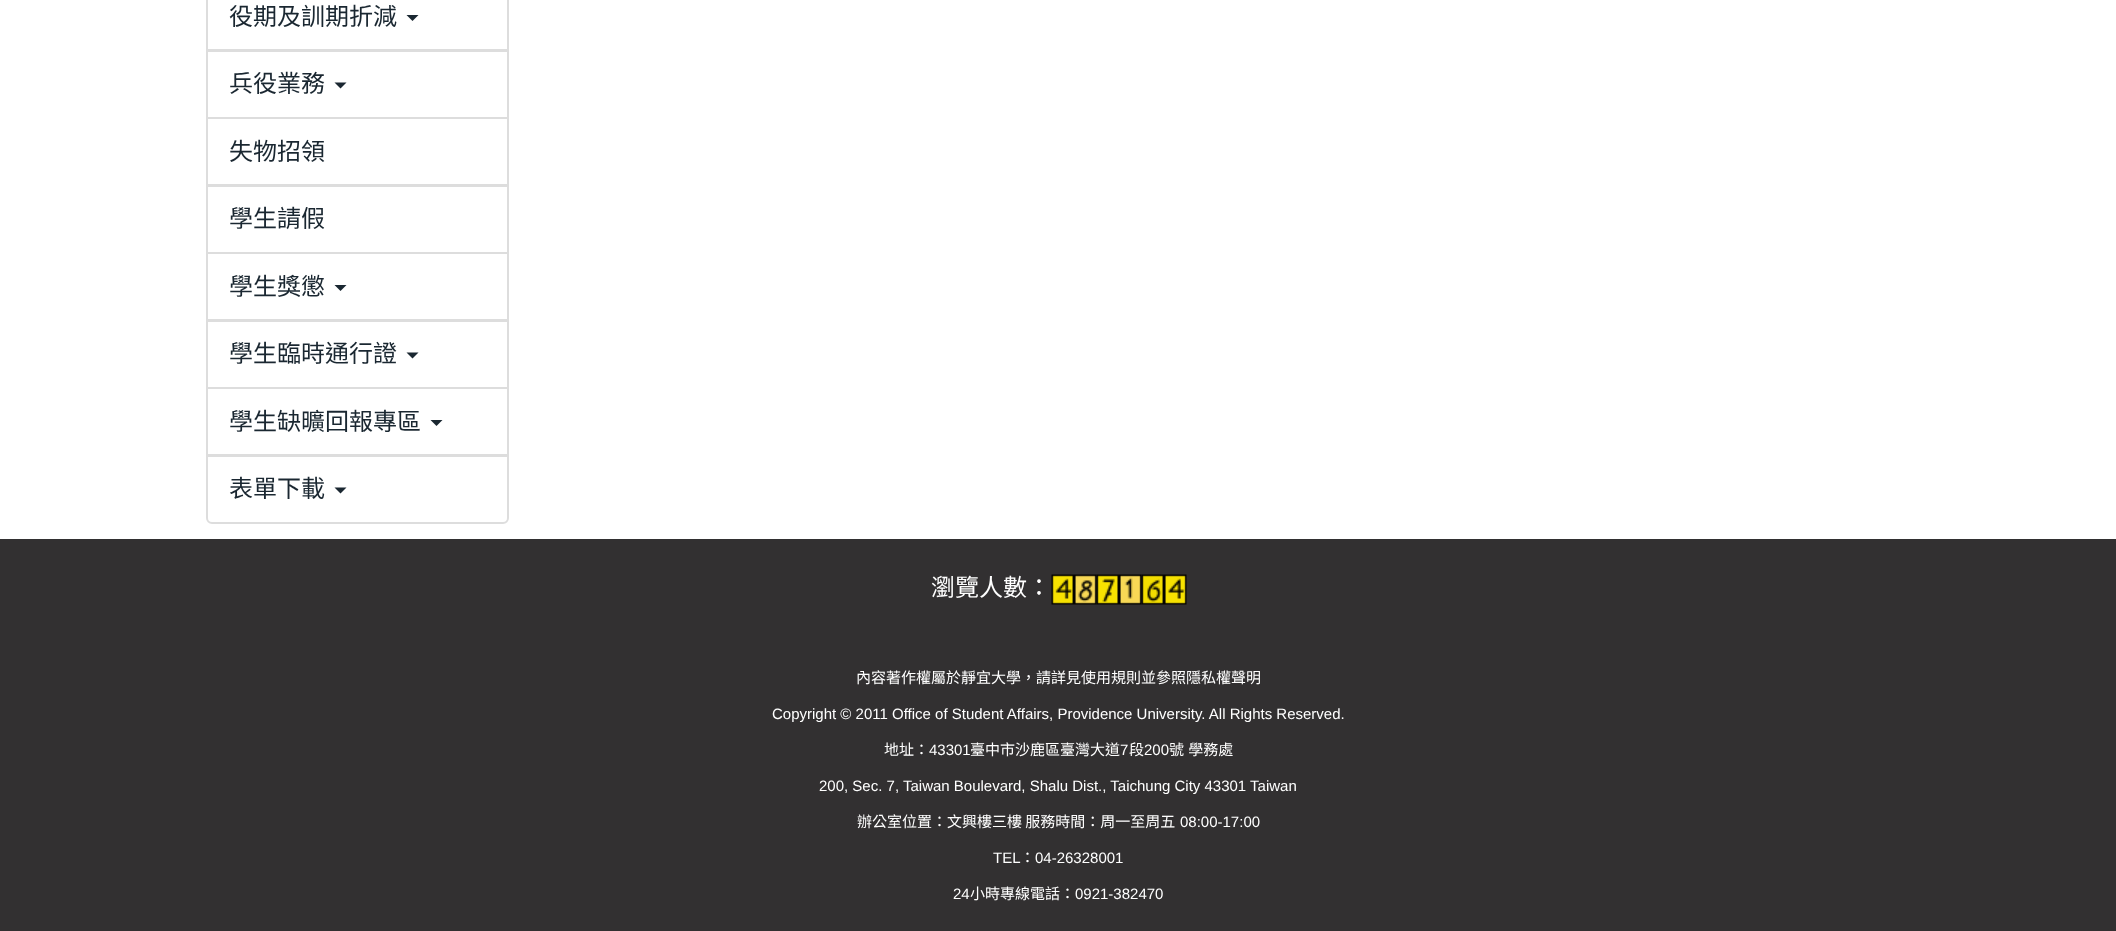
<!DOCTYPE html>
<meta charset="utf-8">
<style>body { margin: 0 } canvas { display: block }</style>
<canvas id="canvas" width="2116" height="931"></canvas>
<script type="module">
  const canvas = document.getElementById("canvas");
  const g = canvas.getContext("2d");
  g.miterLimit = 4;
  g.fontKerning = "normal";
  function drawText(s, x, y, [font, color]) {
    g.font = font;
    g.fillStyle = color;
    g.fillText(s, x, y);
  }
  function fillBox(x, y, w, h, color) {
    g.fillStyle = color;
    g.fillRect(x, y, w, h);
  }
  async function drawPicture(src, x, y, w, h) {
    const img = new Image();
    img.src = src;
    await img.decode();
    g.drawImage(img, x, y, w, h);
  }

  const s1 = ["24px Noto Sans CJK TC", "#1A2731"];
  const s2 = ["24px Noto Sans CJK TC", "#FFFFFF"];
  const s3 = ["15px Noto Sans CJK TC", "#FFFFFF"];
  const s4 = ["15px Liberation Sans", "#FFFFFF"];

  fillBox(0, 0, 2116, 931, "#FFFFFF");
  g.strokeStyle = "#DDDDDD";
  g.lineWidth = 2;
  g.strokeRect(207, -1, 301, 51);
  drawText("役期及訓期折減", 229, 25, s1);
  g.beginPath();
  g.moveTo(406.5, 15);
  g.lineTo(418.5, 15);
  g.lineTo(412.5, 21);
  g.closePath();
  g.fill();
  g.strokeRect(207, 51, 301, 67);
  drawText("兵役業務", 229, 92, s1);
  g.beginPath();
  g.moveTo(334.5, 82.5);
  g.lineTo(346.5, 82.5);
  g.lineTo(340.5, 88.5);
  g.closePath();
  g.fill();
  g.strokeRect(207, 118, 301, 67);
  drawText("失物招領", 229, 160, s1);
  g.strokeRect(207, 186, 301, 67);
  drawText("學生請假", 229, 227, s1);
  g.strokeRect(207, 253, 301, 67);
  drawText("學生獎懲", 229, 295, s1);
  g.beginPath();
  g.moveTo(334.5, 285);
  g.lineTo(346.5, 285);
  g.lineTo(340.5, 291);
  g.closePath();
  g.fill();
  g.strokeRect(207, 321, 301, 67);
  drawText("學生臨時通行證", 229, 362, s1);
  g.beginPath();
  g.moveTo(406.5, 352.5);
  g.lineTo(418.5, 352.5);
  g.lineTo(412.5, 358.5);
  g.closePath();
  g.fill();
  g.strokeRect(207, 388, 301, 67);
  drawText("學生缺曠回報專區", 229, 430, s1);
  g.beginPath();
  g.moveTo(430.5, 420);
  g.lineTo(442.5, 420);
  g.lineTo(436.5, 426);
  g.closePath();
  g.fill();
  g.fillStyle = "#FFFFFF";
  g.beginPath();
  g.roundRect(207, 456, 301, 67, [0, 0, 5, 5]);
  g.fill();
  g.stroke();
  drawText("表單下載", 229, 497, s1);
  g.beginPath();
  g.moveTo(334.5, 487.5);
  g.lineTo(346.5, 487.5);
  g.lineTo(340.5, 493.5);
  g.closePath();
  g.fill();
  fillBox(0, 539, 2116, 392, "#323031");
  drawText("瀏覽人數：", 931, 596, s2);
  await drawPicture("pic1.png", 1051, 574, 23, 31);
  await drawPicture("pic2.png", 1074, 574, 23, 31);
  await drawPicture("pic3.png", 1096, 574, 23, 31);
  await drawPicture("pic4.png", 1119, 574, 23, 31);
  await drawPicture("pic5.png", 1141, 574, 23, 31);
  await drawPicture("pic6.png", 1164, 574, 23, 31);
  drawText("內容著作權屬於靜宜大學，請詳見使用規則並參照隱私權聲明", 856, 683, s3);
  drawText("Copyright © 2011 Office of Student Affairs, Providence University. All Rights Reserved.", 772, 719, s4);
  drawText("地址：", 884, 755, s3);
  drawText("43301", 929, 755, s4);
  drawText("臺中市沙鹿區臺灣大道", 970, 755, s3);
  drawText("7", 1120, 755, s4);
  drawText("段", 1129, 755, s3);
  drawText("200", 1144, 755, s4);
  g.wordSpacing = "1px";
  drawText("號 學務處", 1169, 755, s3);
  g.wordSpacing = "0px";
  drawText("200, Sec. 7, Taiwan Boulevard, Shalu Dist., Taichung City 43301 Taiwan", 819, 791, s4);
  drawText("辦公室位置：文興樓三樓 服務時間：周一至周五", 857, 827, s3);
  drawText("08:00-17:00", 1180, 827, s4);
  drawText("TEL", 993, 863, s4);
  drawText("：", 1020, 863, s3);
  drawText("04-26328001", 1035, 863, s4);
  drawText("24", 953, 899, s4);
  drawText("小時專線電話：", 970, 899, s3);
  drawText("0921-382470", 1075, 899, s4);
</script>
